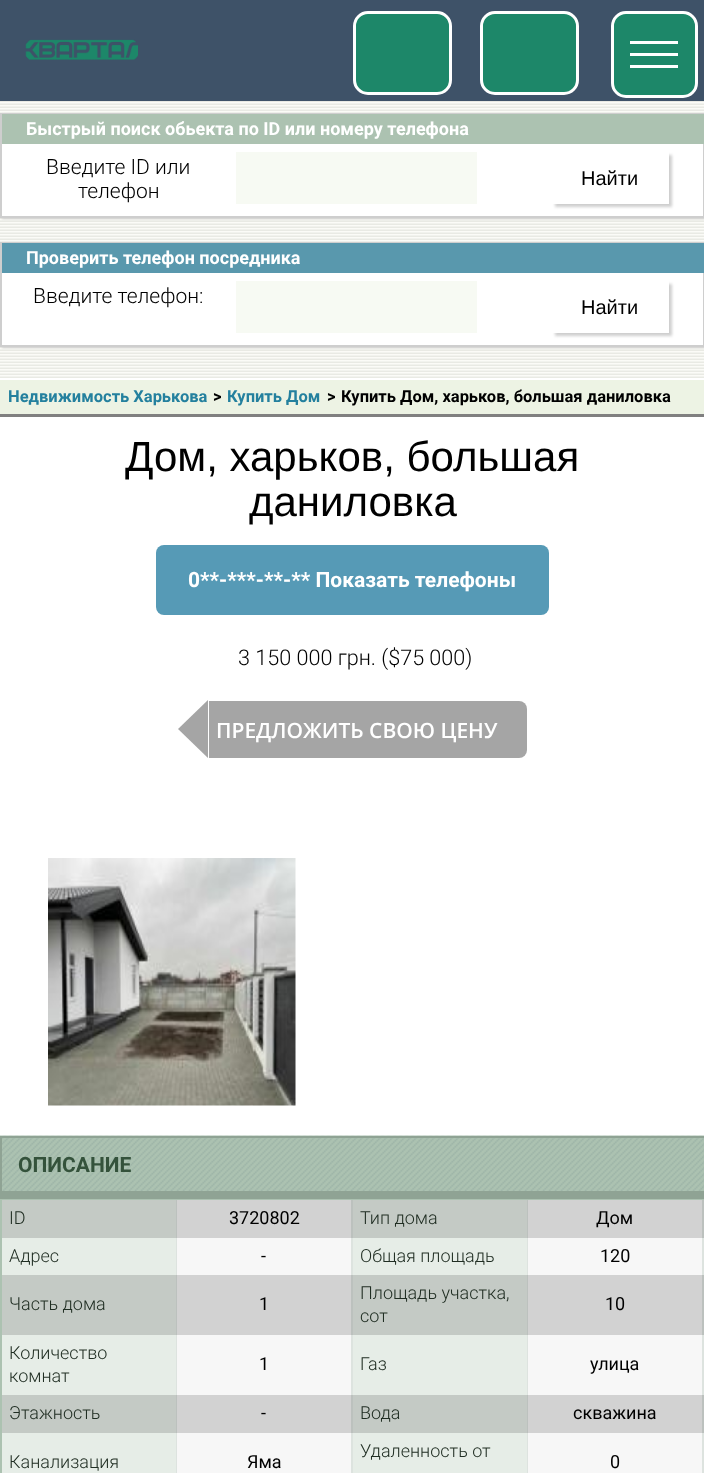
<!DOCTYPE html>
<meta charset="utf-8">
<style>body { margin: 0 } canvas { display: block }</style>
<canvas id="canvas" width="704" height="1473"></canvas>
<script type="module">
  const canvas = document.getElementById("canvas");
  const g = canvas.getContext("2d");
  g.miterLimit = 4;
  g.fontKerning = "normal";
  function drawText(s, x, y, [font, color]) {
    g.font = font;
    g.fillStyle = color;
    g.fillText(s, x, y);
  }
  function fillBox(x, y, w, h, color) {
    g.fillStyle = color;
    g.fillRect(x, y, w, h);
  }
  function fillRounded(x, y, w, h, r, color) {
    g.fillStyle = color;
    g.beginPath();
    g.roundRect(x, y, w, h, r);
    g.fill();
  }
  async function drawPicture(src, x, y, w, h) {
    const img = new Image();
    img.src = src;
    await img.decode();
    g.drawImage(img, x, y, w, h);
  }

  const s1 = ["bold 18px Roboto", "#FFFFFF"];
  const s2 = ["300 21px Roboto", "#000000"];
  const s3 = ["20px Liberation Sans", "#000000"];
  const s4 = ["bold 16.5px Roboto", "#24809E"];
  const s5 = ["bold 16.5px Roboto", "#000000"];
  const s6 = ["42px Liberation Sans", "#000000"];
  const s7 = ["bold 21px Roboto", "#FFFFFF"];
  const s8 = ["300 21.6px Roboto", "#000000"];
  const s9 = ["600 21px Open Sans", "#FFFFFF"];
  const s10 = ["bold 21px Roboto", "#34523B"];
  const s11 = ["300 18px Roboto", "#202E23"];
  const s12 = ["18px Roboto", "#000000"];

  fillBox(0, 0, 704, 1473, "#FFFFFF");
  await drawPicture("pic2.png", 0, 100, 704, 278);
  fillBox(0, 0, 704, 101, "rgba(52, 73, 96, 0.95)");
  await drawPicture("pic1.png", 25, 39, 113, 21);
  g.fillStyle = "#1D8769";
  g.beginPath();
  g.roundRect(354.5, 12.5, 96, 81, 13.5);
  g.fill();
  g.strokeStyle = "#FFFFFF";
  g.lineWidth = 3;
  g.stroke();
  g.beginPath();
  g.roundRect(481.5, 12.5, 96, 81, 13.5);
  g.fill();
  g.stroke();
  g.beginPath();
  g.roundRect(612.5, 12.5, 84, 84, 13.5);
  g.fill();
  g.stroke();
  fillBox(630, 41, 48, 3, "#FFFFFF");
  fillBox(630, 53, 48, 3, "#FFFFFF");
  fillBox(630, 65, 48, 3, "#FFFFFF");
  g.fillStyle = "#CECECE";
  g.filter = "blur(1px)";
  g.beginPath();
  g.rect(2, 114, 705, 105);
  g.fill();
  g.filter = "none";
  fillBox(2, 144, 701, 72, "#FFFFFF");
  g.strokeStyle = "#CECECE";
  g.lineWidth = 2;
  g.strokeRect(1, 114, 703, 103);
  fillBox(2, 114, 702, 30, "#ACC2B1");
  drawText("Быстрый поиск обьекта по ID или номеру телефона", 26, 135, s1);
  drawText("Введите ID или", 46, 174, s2);
  drawText("телефон", 78, 198, s2);
  fillBox(236, 152, 241, 52, "#F7FAF3");
  g.save();
  g.beginPath();
  g.moveTo(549, 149);
  g.lineTo(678, 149);
  g.lineTo(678, 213);
  g.lineTo(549, 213);
  g.closePath();
  g.moveTo(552, 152);
  g.lineTo(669, 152);
  g.lineTo(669, 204);
  g.lineTo(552, 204);
  g.closePath();
  g.clip("evenodd");
  g.fillStyle = "#CECECE";
  g.filter = "blur(1.5px)";
  g.beginPath();
  g.rect(555, 155, 117, 52);
  g.fill();
  g.filter = "none";
  g.restore();
  drawText("Найти", 581, 185, s3);
  g.fillStyle = "#CECECE";
  g.filter = "blur(1px)";
  g.beginPath();
  g.rect(2, 243, 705, 105);
  g.fill();
  g.filter = "none";
  fillBox(2, 273, 701, 72, "#FFFFFF");
  g.strokeRect(1, 243, 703, 103);
  fillBox(2, 243, 702, 30, "#5998AD");
  drawText("Проверить телефон посредника", 26, 264, s1);
  drawText("Введите телефон:", 33, 303, s2);
  fillBox(236, 281, 241, 52, "#F7FAF3");
  g.save();
  g.beginPath();
  g.moveTo(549, 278);
  g.lineTo(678, 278);
  g.lineTo(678, 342);
  g.lineTo(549, 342);
  g.closePath();
  g.moveTo(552, 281);
  g.lineTo(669, 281);
  g.lineTo(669, 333);
  g.lineTo(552, 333);
  g.closePath();
  g.clip("evenodd");
  g.fillStyle = "#CECECE";
  g.filter = "blur(1.5px)";
  g.beginPath();
  g.rect(555, 284, 117, 52);
  g.fill();
  g.filter = "none";
  g.restore();
  drawText("Найти", 581, 314, s3);
  fillBox(0, 380, 704, 34, "#EDF3E4");
  drawText("Недвижимость Харькова", 8, 402, s4);
  drawText(">", 213, 402, s5);
  drawText("Купить Дом", 227, 402, s4);
  drawText(">", 327, 402, s5);
  drawText("Купить Дом, харьков, большая даниловка", 341, 402, s5);
  fillBox(0, 414, 704, 3, "#808080");
  drawText("Дом, харьков, большая", 125, 471, s6);
  drawText("даниловка", 249, 516, s6);
  fillRounded(156, 545, 393, 70, 8, "#569AB6");
  drawText("0**-***-**-** Показать телефоны", 188, 587, s7);
  drawText("3 150 000 грн. ($75 000)", 238, 665, s8);
  g.fillStyle = "#A5A5A5";
  g.beginPath();
  g.roundRect(209, 701, 318, 57, [0, 8, 8, 0]);
  g.fill();
  g.beginPath();
  g.moveTo(208, 700);
  g.lineTo(208, 758);
  g.lineTo(178, 729);
  g.closePath();
  g.fill();
  drawText("ПРЕДЛОЖИТЬ СВОЮ ЦЕНУ", 216, 738, s9);
  await drawPicture("pic3.png", 48, 858, 248, 248);
  await drawPicture("pic4.png", 0, 1135, 704, 56);
  fillBox(0, 1136, 704, 2, "#8FA394");
  fillBox(0, 1191, 704, 8, "#8FA394");
  fillBox(0, 1136, 2, 63, "#8FA394");
  drawText("ОПИСАНИЕ", 18, 1172, s10);
  g.strokeStyle = "#ACC2B1";
  g.strokeRect(1, 1200, 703, 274);
  fillBox(2, 1200, 174, 38, "#C4CAC5");
  fillBox(176, 1200, 1, 38, "#BCC1BE");
  drawText("ID", 9, 1224, s11);
  fillBox(177, 1200, 174, 38, "#D2D2D2");
  fillBox(351, 1200, 2, 38, "#BCC1BE");
  drawText("3720802", 229, 1224, s12);
  fillBox(353, 1200, 174, 38, "#C4CAC5");
  fillBox(527, 1200, 1, 38, "#BCC1BE");
  drawText("Тип дома", 360, 1224, s11);
  fillBox(528, 1200, 174, 38, "#D2D2D2");
  fillBox(702, 1200, 2, 38, "#BCC1BE");
  drawText("Дом", 596, 1224, s12);
  fillBox(2, 1238, 174, 37, "#E6EDE7");
  fillBox(176, 1238, 1, 37, "#DDE3DF");
  drawText("Адрес", 9, 1262, s11);
  fillBox(177, 1238, 174, 37, "#F7F7F7");
  fillBox(351, 1238, 2, 37, "#DDE3DF");
  drawText("-", 261, 1262, s12);
  fillBox(353, 1238, 174, 37, "#E6EDE7");
  fillBox(527, 1238, 1, 37, "#DDE3DF");
  drawText("Общая площадь", 360, 1262, s11);
  fillBox(528, 1238, 174, 37, "#F7F7F7");
  fillBox(702, 1238, 2, 37, "#DDE3DF");
  drawText("120", 600, 1262, s12);
  fillBox(2, 1275, 174, 60, "#C4CAC5");
  fillBox(176, 1275, 1, 60, "#BCC1BE");
  drawText("Часть дома", 9, 1310, s11);
  fillBox(177, 1275, 174, 60, "#D2D2D2");
  fillBox(351, 1275, 2, 60, "#BCC1BE");
  drawText("1", 259, 1310, s12);
  fillBox(353, 1275, 174, 60, "#C4CAC5");
  fillBox(527, 1275, 1, 60, "#BCC1BE");
  drawText("Площадь участка,", 360, 1299, s11);
  drawText("сот", 360, 1322, s11);
  fillBox(528, 1275, 174, 60, "#D2D2D2");
  fillBox(702, 1275, 2, 60, "#BCC1BE");
  drawText("10", 605, 1310, s12);
  fillBox(2, 1335, 174, 60, "#E6EDE7");
  fillBox(176, 1335, 1, 60, "#DDE3DF");
  drawText("Количество", 9, 1359, s11);
  drawText("комнат", 9, 1382, s11);
  fillBox(177, 1335, 174, 60, "#F7F7F7");
  fillBox(351, 1335, 2, 60, "#DDE3DF");
  drawText("1", 259, 1370, s12);
  fillBox(353, 1335, 174, 60, "#E6EDE7");
  fillBox(527, 1335, 1, 60, "#DDE3DF");
  drawText("Газ", 360, 1370, s11);
  fillBox(528, 1335, 174, 60, "#F7F7F7");
  fillBox(702, 1335, 2, 60, "#DDE3DF");
  drawText("улица", 590, 1370, s12);
  fillBox(2, 1395, 174, 38, "#C4CAC5");
  fillBox(176, 1395, 1, 38, "#BCC1BE");
  drawText("Этажность", 9, 1419, s11);
  fillBox(177, 1395, 174, 38, "#D2D2D2");
  fillBox(351, 1395, 2, 38, "#BCC1BE");
  drawText("-", 261, 1419, s12);
  fillBox(353, 1395, 174, 38, "#C4CAC5");
  fillBox(527, 1395, 1, 38, "#BCC1BE");
  drawText("Вода", 360, 1419, s11);
  fillBox(528, 1395, 174, 38, "#D2D2D2");
  fillBox(702, 1395, 2, 38, "#BCC1BE");
  drawText("скважина", 573, 1419, s12);
  fillBox(353, 1433, 174, 40, "#E6EDE7");
  fillBox(527, 1433, 1, 40, "#DDE3DF");
  drawText("Удаленность от", 360, 1457, s11);
  fillBox(2, 1433, 174, 40, "#E6EDE7");
  fillBox(176, 1433, 1, 40, "#DDE3DF");
  drawText("Канализация", 9, 1468, s11);
  fillBox(177, 1433, 174, 40, "#F7F7F7");
  fillBox(351, 1433, 2, 40, "#DDE3DF");
  drawText("Яма", 247, 1468, s12);
  fillBox(528, 1433, 174, 40, "#F7F7F7");
  fillBox(702, 1433, 2, 40, "#DDE3DF");
  drawText("0", 610, 1468, s12);
</script>
